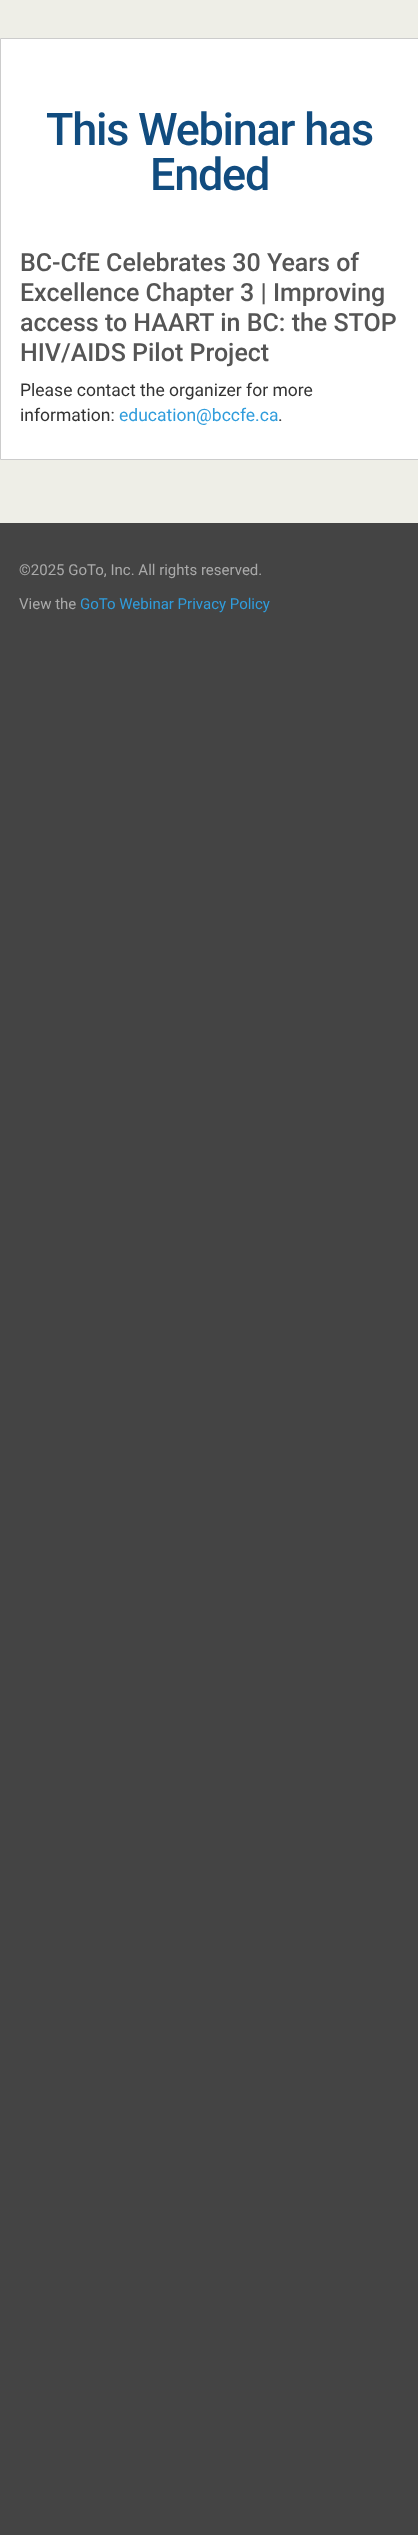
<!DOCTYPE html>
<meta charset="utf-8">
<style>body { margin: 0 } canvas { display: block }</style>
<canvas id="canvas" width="418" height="2535"></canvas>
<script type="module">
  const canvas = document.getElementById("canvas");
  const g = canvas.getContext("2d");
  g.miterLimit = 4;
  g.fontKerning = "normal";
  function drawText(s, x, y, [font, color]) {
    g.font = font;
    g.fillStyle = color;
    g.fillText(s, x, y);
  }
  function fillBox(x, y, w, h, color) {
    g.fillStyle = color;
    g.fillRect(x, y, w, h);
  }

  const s1 = ["500 45px Roboto", "#114C7F"];
  const s2 = ["500 25px Roboto", "#555555"];
  const s3 = ["17.5px Roboto", "#333333"];
  const s4 = ["17.5px Roboto", "#309DDC"];
  const s5 = ["15px Roboto", "#AAAAAA"];
  const s6 = ["15px Roboto", "#309DDC"];

  fillBox(0, 0, 418, 2535, "#444444");
  fillBox(0, 0, 418, 523, "#EEEEE7");
  g.fillStyle = "#FFFFFF";
  g.beginPath();
  g.rect(0.5, 38.5, 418, 421);
  g.fill();
  g.strokeStyle = "#CCCCCC";
  g.stroke();
  g.letterSpacing = "-1.25px";
  drawText("This Webinar has", 46, 145, s1);
  drawText("Ended", 150, 190, s1);
  g.letterSpacing = "0px";
  drawText("BC-CfE Celebrates 30 Years of", 20, 271, s2);
  drawText("Excellence Chapter 3 | Improving", 20, 301, s2);
  drawText("access to HAART in BC: the STOP", 20, 331, s2);
  drawText("HIV/AIDS Pilot Project", 20, 361, s2);
  drawText("Please contact the organizer for more", 20, 396, s3);
  drawText("information:", 20, 421, s3);
  drawText("education@bccfe.ca", 119, 421, s4);
  drawText(".", 278, 421, s3);
  drawText("©2025 GoTo, Inc. All rights reserved.", 19, 575, s5);
  drawText("View the", 19, 609, s5);
  drawText("GoTo Webinar Privacy Policy", 80, 609, s6);
</script>
